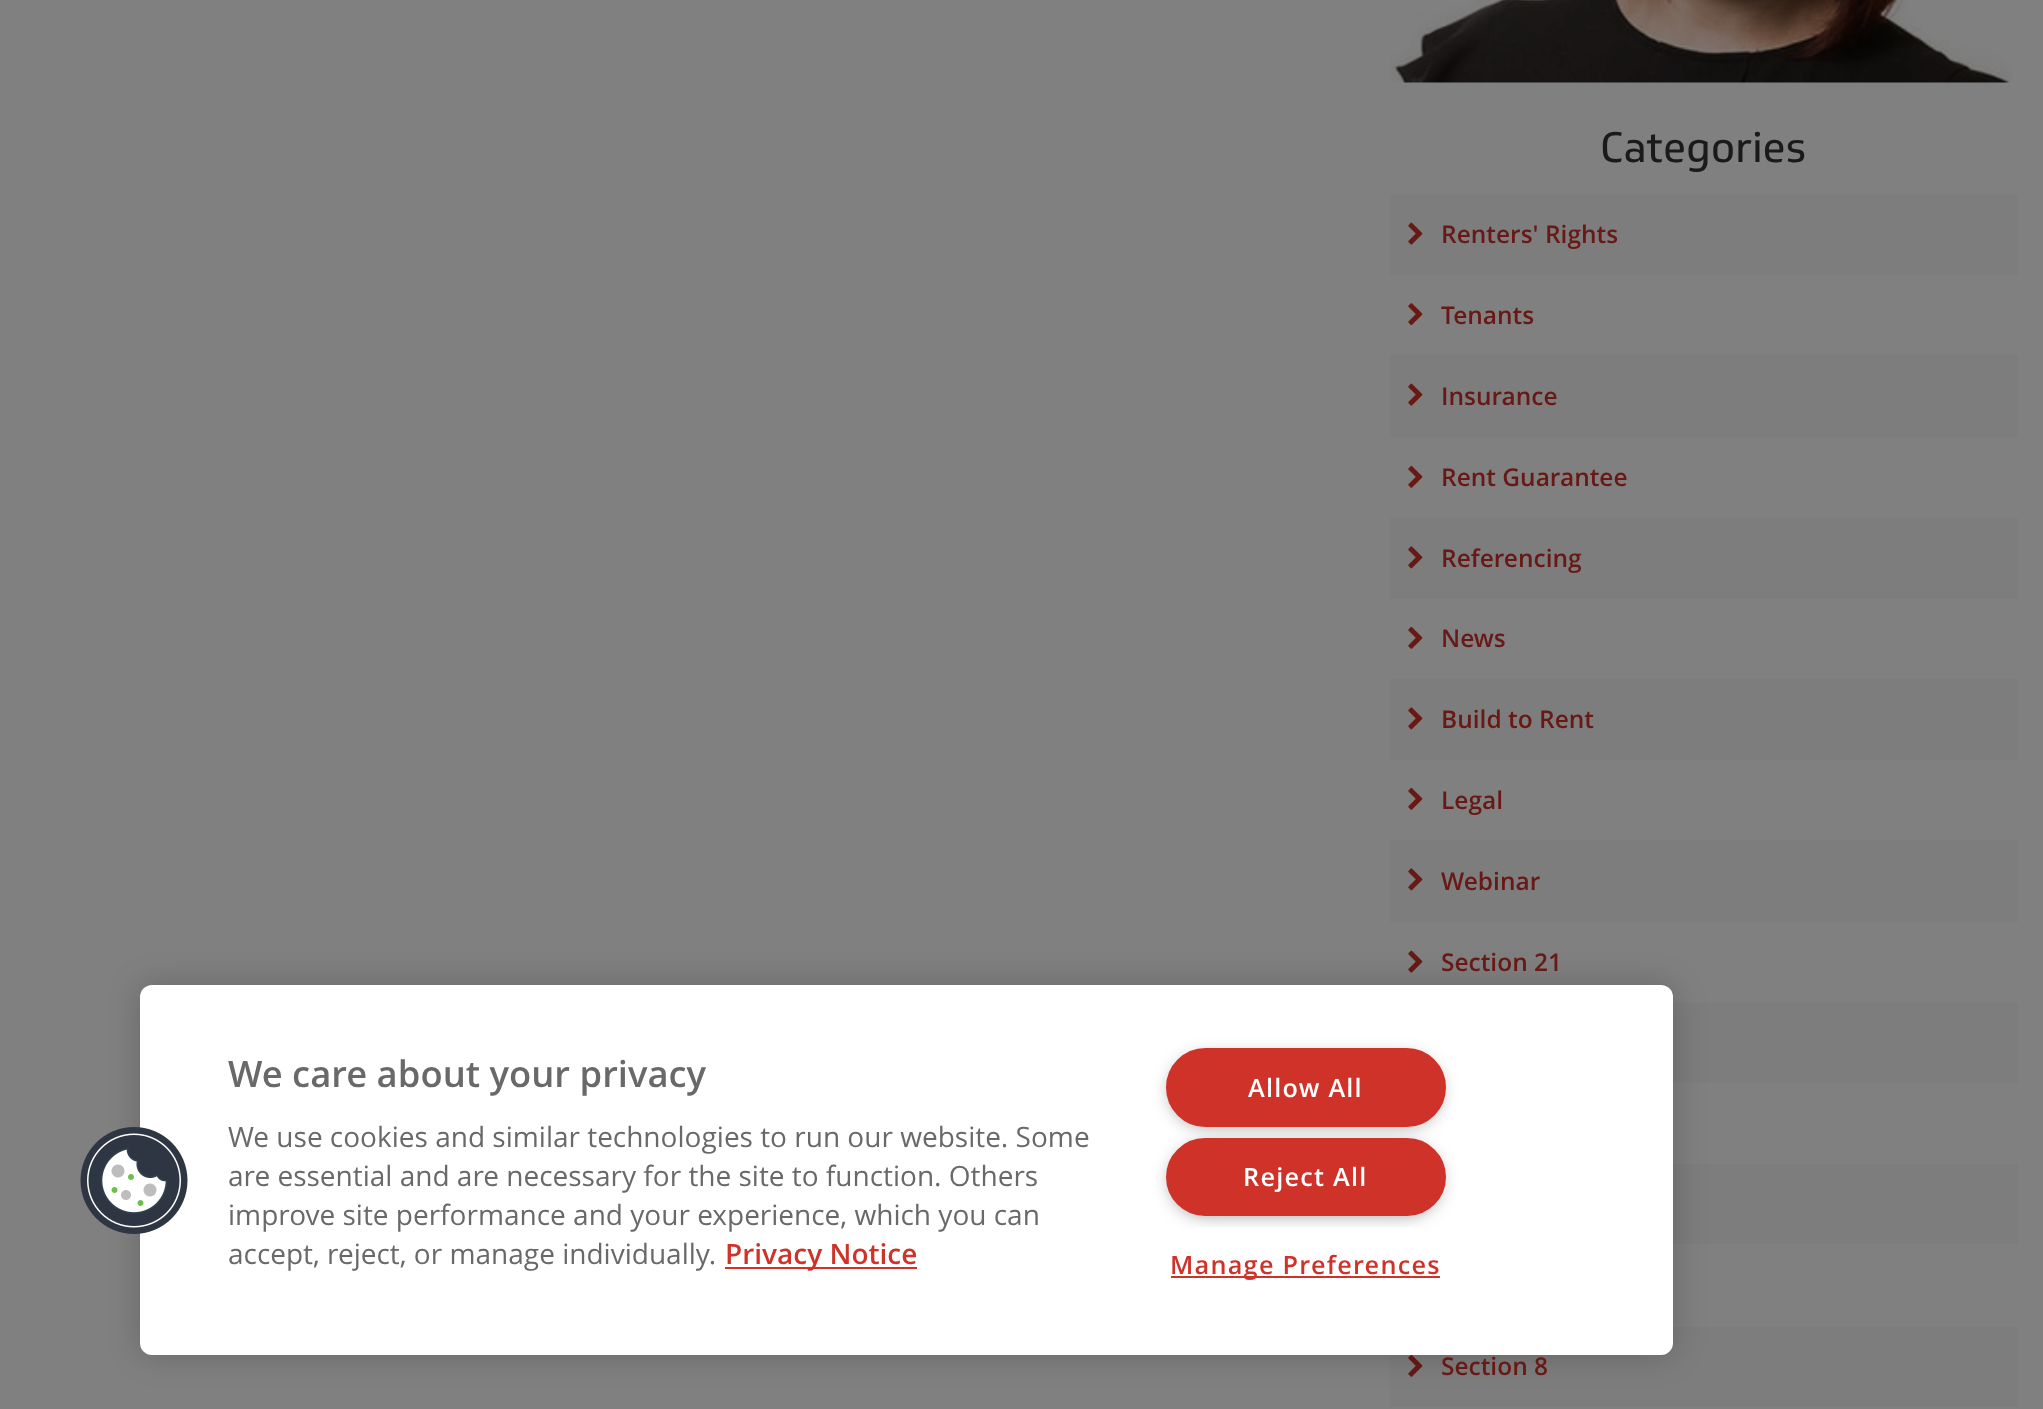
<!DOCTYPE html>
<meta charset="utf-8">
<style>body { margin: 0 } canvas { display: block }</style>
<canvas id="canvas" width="2043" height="1409"></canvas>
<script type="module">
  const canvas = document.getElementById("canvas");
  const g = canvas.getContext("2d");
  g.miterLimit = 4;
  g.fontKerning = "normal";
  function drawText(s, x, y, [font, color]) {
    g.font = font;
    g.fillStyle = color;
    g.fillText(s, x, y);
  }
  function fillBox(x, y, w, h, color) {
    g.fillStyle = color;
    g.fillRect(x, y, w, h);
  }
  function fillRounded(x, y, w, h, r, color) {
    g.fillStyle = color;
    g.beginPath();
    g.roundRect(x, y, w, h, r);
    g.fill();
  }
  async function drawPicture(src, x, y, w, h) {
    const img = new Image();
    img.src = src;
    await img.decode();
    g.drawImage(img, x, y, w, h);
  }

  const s1 = ["600 36.4px Open Sans", "#696969"];
  const s2 = ["28px Open Sans", "#696969"];
  const s3 = ["600 28px Open Sans", "#CF3229"];
  const s4 = ["600 25.25px Open Sans", "#FFFFFF"];
  const s5 = ["600 25.25px Open Sans", "#CF3229"];
  const s6 = ["42px 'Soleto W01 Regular'", "#1A1A1A"];
  const s7 = ["600 24.5px Open Sans", "#681915"];

  fillBox(0, 0, 2043, 1409, "#808080");
  await drawPicture("pic7.png", 1408, 950, 15, 23);
  fillBox(1673, 1003, 345, 80, "#7D7D7D");
  fillBox(1673, 1164, 345, 80, "#7D7D7D");
  fillBox(1390, 1327, 628, 80, "#7D7D7D");
  await drawPicture("pic8.png", 1408, 1355, 15, 22);
  g.fillStyle = "rgba(0, 0, 0, 0.2)";
  g.filter = "blur(16px)";
  g.beginPath();
  g.roundRect(140, 985, 1533, 370, 12);
  g.fill();
  g.filter = "none";
  fillRounded(140, 985, 1533, 370, 12, "#FFFFFF");
  await drawPicture("pic1.png", 80, 1127, 108, 107);
  drawText("We care about your privacy", 228, 1087, s1);
  drawText("We use cookies and similar technologies to run our website. Some", 228, 1147, s2);
  drawText("are essential and are necessary for the site to function. Others", 228, 1186, s2);
  drawText("improve site performance and your experience, which you can", 228, 1225, s2);
  drawText("accept, reject, or manage individually.", 228, 1264, s2);
  fillBox(725, 1267, 192, 2, "#CF3229");
  drawText("Privacy Notice", 725, 1264, s3);
  g.fillStyle = "#999999";
  g.filter = "blur(9px)";
  g.beginPath();
  g.roundRect(1171, 1057, 269, 68, 34);
  g.fill();
  g.filter = "none";
  g.fillStyle = "#CF3229";
  g.beginPath();
  g.roundRect(1167, 1049, 278, 77, 38.5);
  g.fill();
  g.strokeStyle = "#CF3229";
  g.lineWidth = 2;
  g.stroke();
  g.letterSpacing = "1.25px";
  drawText("Allow All", 1248, 1097, s4);
  g.fillStyle = "#999999";
  g.filter = "blur(9px)";
  g.beginPath();
  g.roundRect(1171, 1146, 269, 69, 34.5);
  g.fill();
  g.filter = "none";
  g.fillStyle = "#CF3229";
  g.beginPath();
  g.roundRect(1167, 1139, 278, 76, 38);
  g.fill();
  g.stroke();
  drawText("Reject All", 1243, 1186, s4);
  fillRounded(1166, 1227, 280, 75, 37.5, "#FFFFFF");
  fillBox(1171, 1276, 269, 2, "#CF3229");
  drawText("Manage Preferences", 1170, 1274, s5);
  await drawPicture("pic2.png", 1390, 0, 623, 83);
  g.letterSpacing = "0px";
  drawText("Categories", 1600, 162, s6);
  fillBox(1390, 194, 628, 81, "#7D7D7D");
  await drawPicture("pic3.png", 1408, 222, 15, 23);
  drawText("Renters' Rights", 1441, 243, s7);
  await drawPicture("pic4.png", 1408, 303, 15, 23);
  drawText("Tenants", 1441, 324, s7);
  fillBox(1390, 355, 628, 83, "#7D7D7D");
  await drawPicture("pic3.png", 1408, 383, 15, 23);
  drawText("Insurance", 1441, 405, s7);
  await drawPicture("pic5.png", 1408, 465, 15, 23);
  drawText("Rent Guarantee", 1441, 486, s7);
  fillBox(1390, 518, 628, 81, "#7D7D7D");
  await drawPicture("pic6.png", 1408, 546, 15, 23);
  drawText("Referencing", 1441, 567, s7);
  await drawPicture("pic5.png", 1408, 626, 15, 23);
  drawText("News", 1441, 647, s7);
  fillBox(1390, 679, 628, 81, "#7D7D7D");
  await drawPicture("pic6.png", 1408, 707, 15, 23);
  drawText("Build to Rent", 1441, 728, s7);
  await drawPicture("pic5.png", 1408, 787, 15, 23);
  drawText("Legal", 1441, 809, s7);
  fillBox(1390, 840, 628, 82, "#7D7D7D");
  await drawPicture("pic6.png", 1408, 868, 15, 23);
  drawText("Webinar", 1441, 890, s7);
  drawText("Section 21", 1441, 971, s7);
  drawText("Section 8", 1441, 1375, s7);
</script>
